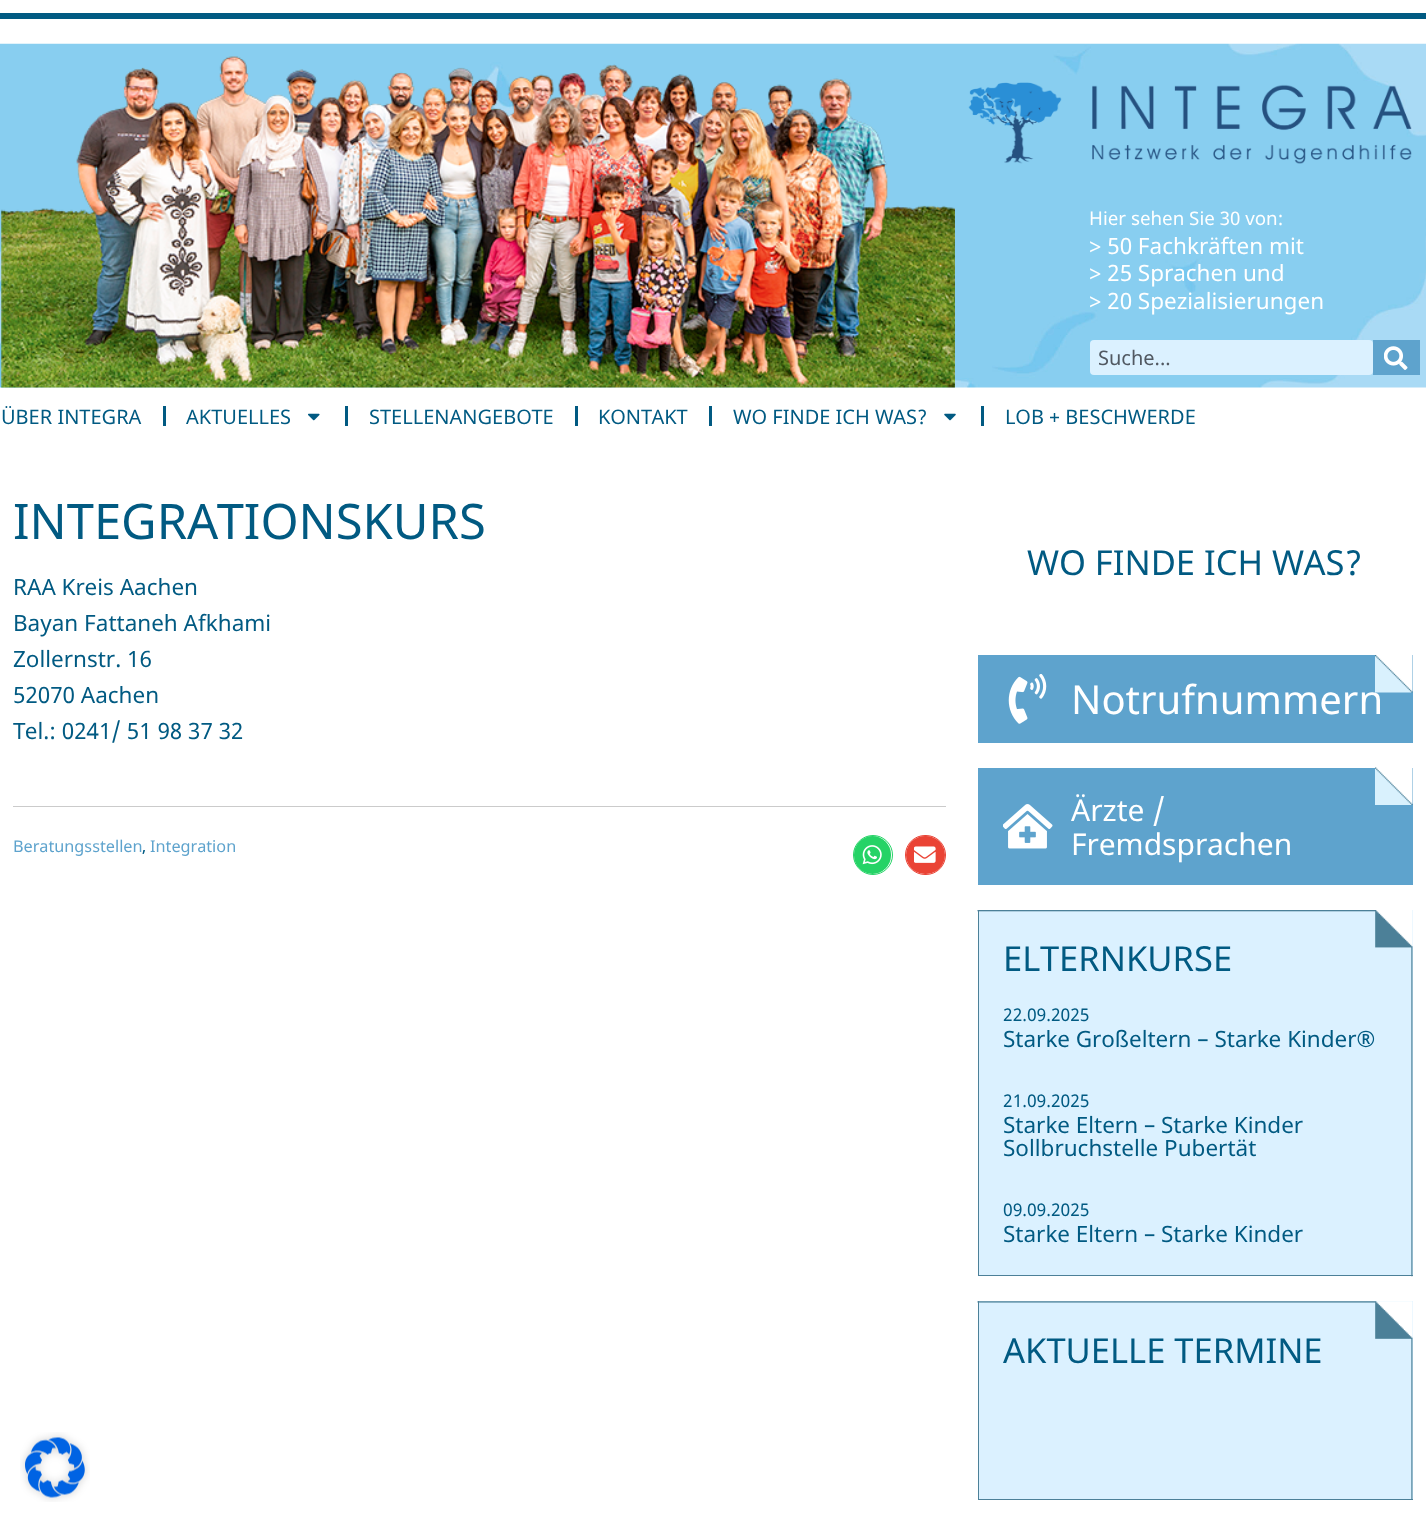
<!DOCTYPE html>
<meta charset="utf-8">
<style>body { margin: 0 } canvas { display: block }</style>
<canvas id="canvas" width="1426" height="1522"></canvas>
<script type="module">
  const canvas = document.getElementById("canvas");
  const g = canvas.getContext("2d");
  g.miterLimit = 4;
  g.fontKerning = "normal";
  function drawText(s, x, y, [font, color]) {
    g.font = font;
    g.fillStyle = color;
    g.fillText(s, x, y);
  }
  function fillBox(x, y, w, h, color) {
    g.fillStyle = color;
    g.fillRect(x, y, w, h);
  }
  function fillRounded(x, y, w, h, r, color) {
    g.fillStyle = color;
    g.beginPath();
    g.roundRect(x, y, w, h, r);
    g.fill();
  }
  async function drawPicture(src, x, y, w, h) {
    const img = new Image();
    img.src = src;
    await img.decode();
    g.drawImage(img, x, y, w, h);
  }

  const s1 = ["18.75px Noto Sans", "#FFFFFF"];
  const s2 = ["22.5px Noto Sans", "#FFFFFF"];
  const s3 = ["20px Noto Sans", "#515962"];
  const s4 = ["20px Noto Sans", "#015A82"];
  const s5 = ["48.9px Noto Sans", "#015A82"];
  const s6 = ["22.5px Noto Sans", "#015A82"];
  const s7 = ["16.25px Noto Sans", "#5EA3CD"];
  const s8 = ["16.25px Noto Sans", "#015A82"];
  const s9 = ["34.5px Noto Sans", "#015A82"];
  const s10 = ["40px Noto Sans", "#FFFFFF"];
  const s11 = ["30px Noto Sans", "#FFFFFF"];
  const s12 = ["17.5px Noto Sans", "#015A82"];

  fillBox(0, 0, 1426, 1522, "#FFFFFF");
  fillBox(0, 13, 1426, 6, "#015A82");
  await drawPicture("pic1.png", 0, 43, 1426, 345);
  await drawPicture("pic2.png", 1, 56, 954, 332);
  await drawPicture("pic3.png", 968, 82, 444, 82);
  drawText("Hier sehen Sie 30 von:", 1089, 225, s1);
  drawText("> 50 Fachkräften mit", 1089, 254, s2);
  drawText("> 25 Sprachen und", 1089, 281, s2);
  drawText("> 20 Spezialisierungen", 1089, 309, s2);
  fillRounded(1090, 340, 283, 35, 4, "#DBF1FF");
  drawText("Suche...", 1098, 365, s3);
  fillBox(1373, 340, 47, 35, "#5EA3CD");
  await drawPicture("pic4.png", 1384, 346, 24, 24);
  drawText("ÜBER INTEGRA", 1, 424, s4);
  fillBox(163, 406, 3, 20, "#015A82");
  drawText("AKTUELLES", 186, 424, s4);
  await drawPicture("pic5.png", 308, 413, 12, 8);
  fillBox(345, 406, 3, 20, "#015A82");
  drawText("STELLENANGEBOTE", 369, 424, s4);
  fillBox(575, 406, 3, 20, "#015A82");
  drawText("KONTAKT", 598, 424, s4);
  fillBox(709, 406, 3, 20, "#015A82");
  drawText("WO FINDE ICH WAS?", 733, 424, s4);
  await drawPicture("pic6.png", 944, 413, 12, 8);
  fillBox(981, 406, 3, 20, "#015A82");
  drawText("LOB + BESCHWERDE", 1005, 424, s4);
  drawText("INTEGRATIONSKURS", 13, 539, s5);
  drawText("RAA Kreis Aachen", 13, 595, s6);
  drawText("Bayan Fattaneh Afkhami", 13, 631, s6);
  drawText("Zollernstr. 16", 13, 667, s6);
  drawText("52070 Aachen", 13, 703, s6);
  drawText("Tel.: 0241/ 51 98 37 32", 13, 739, s6);
  fillBox(13, 806, 933, 1, "#CBCBCB");
  drawText("Beratungsstellen", 13, 852, s7);
  drawText(",", 142, 852, s8);
  drawText("Integration", 150, 852, s7);
  g.beginPath();
  g.arc(873, 855, 19.5, 0, Math.PI * 2);
  g.strokeStyle = "#25D366";
  g.stroke();
  fillRounded(854, 836, 37, 38, 18.5, "#25D366");
  await drawPicture("pic7.png", 862, 845, 20, 20);
  g.beginPath();
  g.roundRect(905.5, 835.5, 40, 39, 19.5);
  g.strokeStyle = "#EA4335";
  g.stroke();
  fillRounded(906, 836, 39, 38, 19, "#EA4335");
  await drawPicture("pic8.png", 914, 846, 22, 17);
  drawText("WO FINDE ICH WAS?", 1027, 575, s9);
  fillBox(978, 655, 435, 88, "#5EA3CD");
  await drawPicture("pic9.png", 1375, 655, 38, 38);
  await drawPicture("pic10.png", 1008, 674, 39, 50);
  drawText("Notrufnummern", 1071, 714, s10);
  fillBox(978, 768, 435, 117, "#5EA3CD");
  await drawPicture("pic11.png", 1375, 767, 38, 38);
  await drawPicture("pic12.png", 1003, 804, 50, 45);
  drawText("Ärzte /", 1071, 821, s11);
  drawText("Fremdsprachen", 1071, 855, s11);
  fillBox(979, 910, 434, 365, "#DBF1FF");
  await drawPicture("pic13.png", 977, 910, 436, 367);
  fillBox(978, 1275, 435, 1, "#4C8098");
  fillBox(978, 910, 1, 366, "#4C8098");
  drawText("ELTERNKURSE", 1003, 971, s9);
  drawText("22.09.2025", 1003, 1021, s12);
  drawText("Starke Großeltern – Starke Kinder®", 1003, 1047, s6);
  drawText("21.09.2025", 1003, 1107, s12);
  drawText("Starke Eltern – Starke Kinder", 1003, 1133, s6);
  drawText("Sollbruchstelle Pubertät", 1003, 1156, s6);
  drawText("09.09.2025", 1003, 1216, s12);
  drawText("Starke Eltern – Starke Kinder", 1003, 1242, s6);
  fillBox(979, 1301, 434, 198, "#DBF1FF");
  await drawPicture("pic14.png", 977, 1301, 436, 198);
  fillBox(978, 1499, 435, 1, "#4C8098");
  fillBox(978, 1301, 1, 199, "#4C8098");
  drawText("AKTUELLE TERMINE", 1003, 1363, s9);
  await drawPicture("pic15.png", 20, 1432, 70, 70);
</script>
